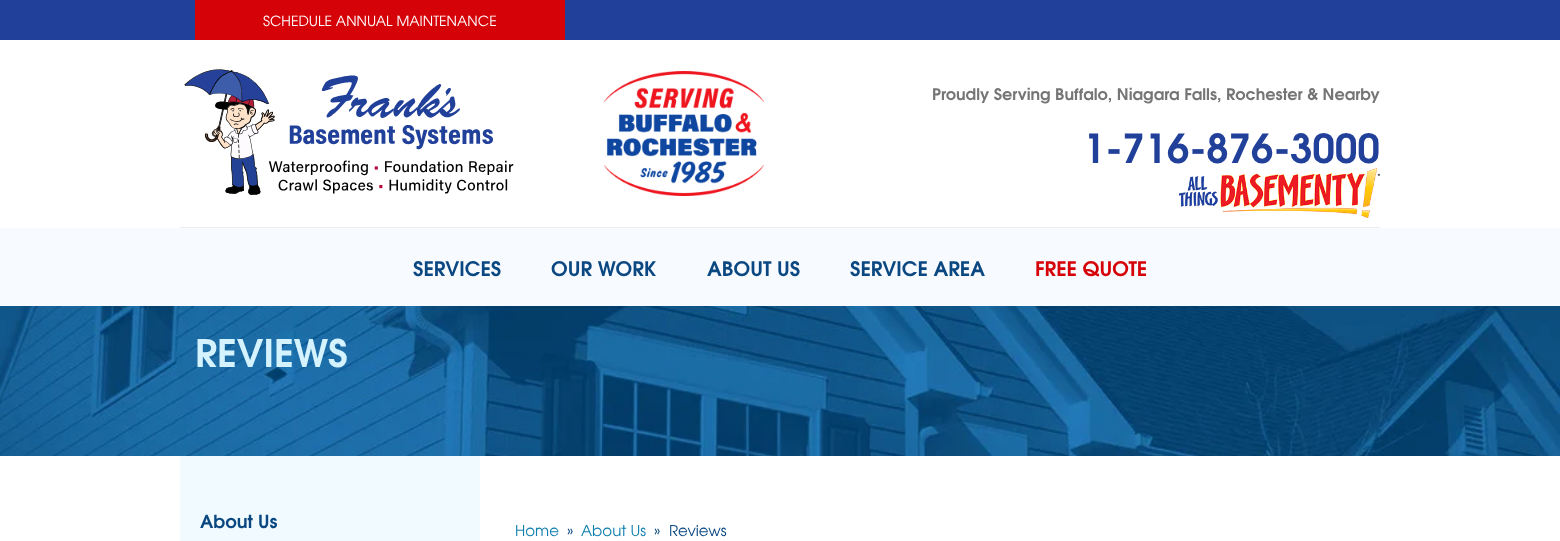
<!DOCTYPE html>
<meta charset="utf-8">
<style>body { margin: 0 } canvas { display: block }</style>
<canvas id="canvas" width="1560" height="541"></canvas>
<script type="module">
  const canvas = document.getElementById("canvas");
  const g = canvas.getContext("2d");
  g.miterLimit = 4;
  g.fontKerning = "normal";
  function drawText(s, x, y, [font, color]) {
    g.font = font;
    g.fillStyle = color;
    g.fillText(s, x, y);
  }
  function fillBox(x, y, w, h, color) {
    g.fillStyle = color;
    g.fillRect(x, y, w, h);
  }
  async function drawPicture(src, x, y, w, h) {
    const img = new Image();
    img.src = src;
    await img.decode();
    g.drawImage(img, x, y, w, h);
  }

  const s1 = ["14px TeX Gyre Adventor", "#FFFFFF"];
  const s2 = ["bold 16px TeX Gyre Adventor", "#757575"];
  const s3 = ["bold 40px TeX Gyre Adventor", "#21409A"];
  const s4 = ["bold 20px TeX Gyre Adventor", "#0B4882"];
  const s5 = ["bold 20px TeX Gyre Adventor", "#D50208"];
  const s6 = ["bold 38px TeX Gyre Adventor", "#D5F2FF"];
  const s7 = ["bold 18px TeX Gyre Adventor", "#0B4882"];
  const s8 = ["15px TeX Gyre Adventor", "#0F7FAD"];
  const s9 = ["15px TeX Gyre Adventor", "#0B4882"];

  fillBox(0, 0, 1560, 541, "#21409A");
  fillBox(195, 0, 370, 40, "#D50208");
  drawText("SCHEDULE ANNUAL MAINTENANCE", 263, 26, s1);
  fillBox(0, 40, 1560, 188, "#FFFFFF");
  fillBox(180, 227, 1200, 1, "#EEEEEE");
  await drawPicture("pic1.png", 184, 69, 330, 126);
  await drawPicture("pic2.png", 604, 71, 160, 125);
  drawText("Proudly Serving Buffalo, Niagara Falls, Rochester & Nearby", 932, 100, s2);
  drawText("1-716-876-3000", 1083, 163, s3);
  await drawPicture("pic3.png", 1179, 168, 201, 50);
  fillBox(0, 228, 1560, 78, "#F7FAFF");
  drawText("SERVICES", 413, 276, s4);
  drawText("OUR WORK", 551, 276, s4);
  drawText("ABOUT US", 707, 276, s4);
  drawText("SERVICE AREA", 850, 276, s4);
  drawText("FREE QUOTE", 1035, 276, s5);
  await drawPicture("pic4.png", 0, 306, 1560, 150);
  drawText("REVIEWS", 195, 367, s6);
  fillBox(0, 456, 1560, 85, "#FFFFFF");
  fillBox(180, 456, 300, 85, "#F1FBFF");
  drawText("About Us", 200, 528, s7);
  drawText("Home", 515, 536, s8);
  drawText("»", 567, 536, s9);
  drawText("About Us", 581, 536, s8);
  drawText("»", 654, 536, s9);
  drawText("Reviews", 669, 536, s9);
</script>
